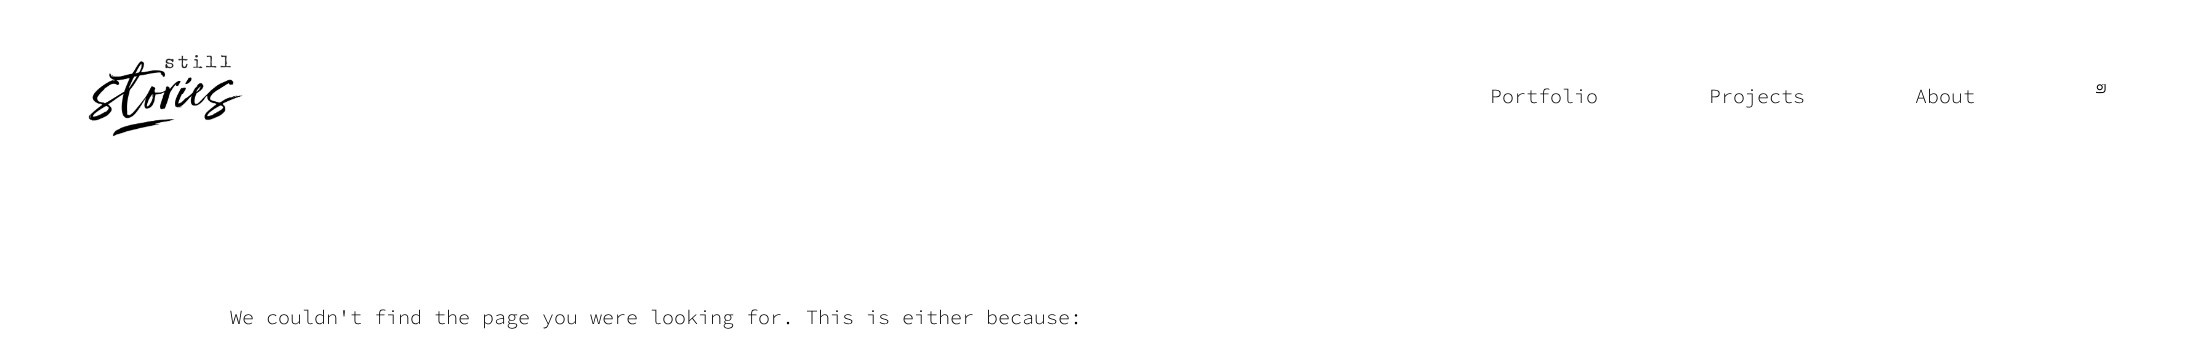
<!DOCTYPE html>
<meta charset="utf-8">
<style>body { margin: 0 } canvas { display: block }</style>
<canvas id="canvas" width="2210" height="342"></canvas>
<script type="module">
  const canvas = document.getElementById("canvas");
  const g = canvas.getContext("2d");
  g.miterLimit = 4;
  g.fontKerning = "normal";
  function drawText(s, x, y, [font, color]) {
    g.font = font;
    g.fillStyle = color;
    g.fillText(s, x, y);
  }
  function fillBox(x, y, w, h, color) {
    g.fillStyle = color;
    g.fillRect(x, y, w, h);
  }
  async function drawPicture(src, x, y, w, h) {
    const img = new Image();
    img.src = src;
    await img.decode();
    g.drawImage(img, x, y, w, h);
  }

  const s1 = ["300 20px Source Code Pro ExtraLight", "#000000"];

  fillBox(0, 0, 2210, 342, "#FFFFFF");
  await drawPicture("pic1.png", 88, 55, 155, 82);
  drawText("Portfolio", 1490, 103, s1);
  drawText("Projects", 1709, 103, s1);
  drawText("About", 1915, 103, s1);
  await drawPicture("pic2.png", 2096, 84, 10, 10);
  drawText("We couldn't find the page you were looking for. This is either because:", 230, 324, s1);
</script>
